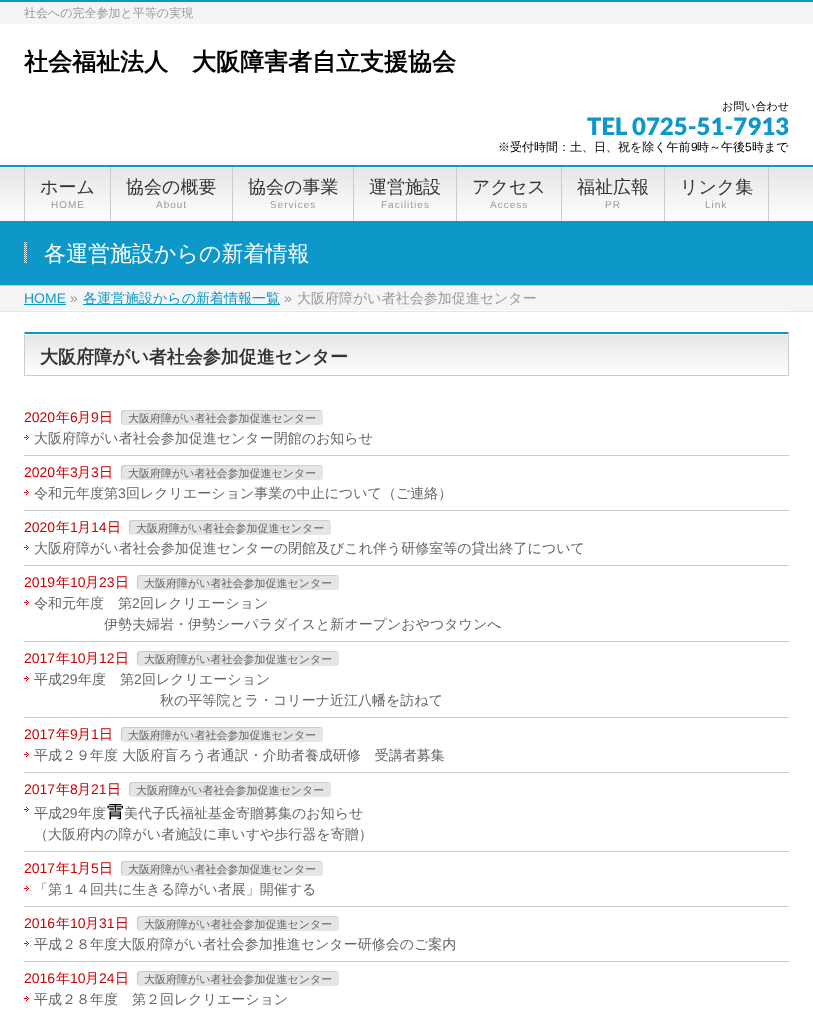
<!DOCTYPE html>
<meta charset="utf-8">
<style>body { margin: 0 } canvas { display: block }</style>
<canvas id="canvas" width="813" height="1010"></canvas>
<script type="module">
  const canvas = document.getElementById("canvas");
  const g = canvas.getContext("2d");
  g.miterLimit = 4;
  g.fontKerning = "normal";
  function drawText(s, x, y, [font, color]) {
    g.font = font;
    g.fillStyle = color;
    g.fillText(s, x, y);
  }
  function fillBox(x, y, w, h, color) {
    g.fillStyle = color;
    g.fillRect(x, y, w, h);
  }
  function fillRounded(x, y, w, h, r, color) {
    g.fillStyle = color;
    g.beginPath();
    g.roundRect(x, y, w, h, r);
    g.fill();
  }
  async function drawPicture(src, x, y, w, h) {
    const img = new Image();
    img.src = src;
    await img.decode();
    g.drawImage(img, x, y, w, h);
  }
  let gradient;

  const s1 = ["500 12px WenQuanYi Zen Hei", "#999999"];
  const s2 = ["bold 24px WenQuanYi Zen Hei", "#000000"];
  const s3 = ["500 11px WenQuanYi Zen Hei", "#000000"];
  const s4 = ["900 24px Lato", "#0E97C9"];
  const s5 = ["500 12px WenQuanYi Zen Hei", "#000000"];
  const s6 = ["12px Liberation Sans", "#000000"];
  const s7 = ["500 18px WenQuanYi Zen Hei", "#333333"];
  const s8 = ["10px Liberation Sans", "#999999"];
  const s9 = ["500 22px WenQuanYi Zen Hei", "#FFFFFF"];
  const s10 = ["14px Liberation Sans", "#0E97C9"];
  const s11 = ["14px Liberation Sans", "#999999"];
  const s12 = ["500 14px WenQuanYi Zen Hei", "#0E97C9"];
  const s13 = ["500 14px WenQuanYi Zen Hei", "#999999"];
  const s14 = ["bold 18px WenQuanYi Zen Hei", "#333333"];
  const s15 = ["14px Liberation Sans", "#CC0000"];
  const s16 = ["500 14px WenQuanYi Zen Hei", "#CC0000"];
  const s17 = ["500 11px WenQuanYi Zen Hei", "#666666"];
  const s18 = ["500 14px WenQuanYi Zen Hei", "#666666"];
  const s19 = ["14px Liberation Sans", "#666666"];

  fillBox(0, 0, 813, 1010, "#FFFFFF");
  fillBox(0, 2, 813, 22, "#F5F5F5");
  fillBox(0, 0, 813, 2, "#0E97C9");
  drawText("社会への完全参加と平等の実現", 24, 17, s1);
  drawText("社会福祉法人　大阪障害者自立支援協会", 24, 70, s2);
  drawText("お問い合わせ", 722, 110, s3);
  drawText("TEL 0725-51-7913", 587, 135, s4);
  drawText("※受付時間：土、日、祝を除く午前", 498, 151, s5);
  drawText("9", 691, 151, s6);
  drawText("時～午後", 697, 151, s5);
  drawText("5", 745, 151, s6);
  drawText("時まで", 752, 151, s5);
  gradient = g.createLinearGradient(407, 167, 407, 221);
  gradient.addColorStop(0, "#E5E5E5");
  gradient.addColorStop(1, "#FFFFFF");
  g.fillStyle = gradient;
  g.fillRect(0, 168, 813, 48);
  fillBox(0, 165, 813, 2, "#0E97C9");
  fillBox(24, 167, 1, 54, "#CCCCCC");
  fillBox(110, 167, 1, 54, "#CCCCCC");
  drawText("ホーム", 40, 193, s7);
  g.letterSpacing = "1px";
  drawText("HOME", 51, 208, s8);
  fillBox(232, 167, 1, 54, "#CCCCCC");
  g.letterSpacing = "0px";
  drawText("協会の概要", 126, 193, s7);
  g.letterSpacing = "1px";
  drawText("About", 156, 208, s8);
  fillBox(353, 167, 1, 54, "#CCCCCC");
  g.letterSpacing = "0px";
  drawText("協会の事業", 248, 193, s7);
  g.letterSpacing = "1px";
  drawText("Services", 270, 208, s8);
  fillBox(456, 167, 1, 54, "#CCCCCC");
  g.letterSpacing = "0px";
  drawText("運営施設", 369, 193, s7);
  g.letterSpacing = "1px";
  drawText("Facilities", 381, 208, s8);
  fillBox(561, 167, 1, 54, "#CCCCCC");
  g.letterSpacing = "0px";
  drawText("アクセス", 472, 193, s7);
  g.letterSpacing = "1px";
  drawText("Access", 490, 208, s8);
  fillBox(664, 167, 1, 54, "#CCCCCC");
  g.letterSpacing = "0px";
  drawText("福祉広報", 577, 193, s7);
  g.letterSpacing = "1px";
  drawText("PR", 605, 208, s8);
  fillBox(768, 167, 1, 54, "#CCCCCC");
  g.letterSpacing = "0px";
  drawText("リンク集", 680, 193, s7);
  g.letterSpacing = "1px";
  drawText("Link", 705, 208, s8);
  fillBox(0, 221, 813, 64, "#0E97C9");
  fillBox(0, 285, 813, 1, "#CCCCCC");
  await drawPicture("pic1.png", 24, 242, 3, 21);
  g.letterSpacing = "0px";
  drawText("各運営施設からの新着情報", 44, 261, s9);
  fillBox(0, 286, 813, 25, "#F5F5F5");
  fillBox(0, 311, 813, 1, "#E5E5E5");
  fillBox(24, 310, 765, 1, "#FFFFFF");
  drawText("HOME", 24, 303, s10);
  fillBox(24, 304, 42, 1, "#0E97C9");
  drawText("»", 70, 303, s11);
  fillBox(83, 304, 197, 1, "#0E97C9");
  drawText("各運営施設からの新着情報一覧", 83, 303, s12);
  drawText("»", 284, 303, s11);
  drawText("大阪府障がい者社会参加促進センター", 297, 303, s13);
  gradient = g.createLinearGradient(25, 334, 25, 375);
  gradient.addColorStop(0, "#E5E5E5");
  gradient.addColorStop(1, "#FFFFFF");
  g.fillStyle = gradient;
  g.fillRect(25, 335, 763, 36);
  g.fillStyle = "#0E97C9";
  g.beginPath();
  g.moveTo(24, 332);
  g.lineTo(789, 332);
  g.lineTo(788, 334);
  g.lineTo(25, 334);
  g.closePath();
  g.fill();
  g.fillStyle = "#CCCCCC";
  g.beginPath();
  g.moveTo(789, 332);
  g.lineTo(789, 376);
  g.lineTo(788, 375);
  g.lineTo(788, 334);
  g.closePath();
  g.fill();
  fillBox(24, 375, 765, 1, "#CCCCCC");
  g.beginPath();
  g.moveTo(24, 376);
  g.lineTo(24, 332);
  g.lineTo(25, 334);
  g.lineTo(25, 375);
  g.closePath();
  g.fill();
  drawText("大阪府障がい者社会参加促進センター", 40, 363, s14);
  fillBox(24, 455, 765, 1, "#CCCCCC");
  drawText("2020", 24, 422, s15);
  drawText("年", 56, 422, s16);
  drawText("6", 70, 422, s15);
  drawText("月", 77, 422, s16);
  drawText("9", 91, 422, s15);
  drawText("日", 99, 422, s16);
  fillRounded(121, 410, 202, 15, 3, "#E5E5E5");
  g.fillStyle = "rgba(0, 0, 0, 0.1)";
  g.beginPath();
  g.moveTo(125, 411);
  g.lineTo(322, 411);
  g.lineTo(320, 410);
  g.lineTo(123, 410);
  g.bezierCurveTo(120, 411, 121, 415, 121, 418);
  g.bezierCurveTo(121, 420, 120, 423, 122, 424);
  g.bezierCurveTo(122, 423, 122, 413, 123, 412);
  g.bezierCurveTo(123, 411, 124, 411, 125, 411);
  g.closePath();
  g.fill();
  drawText("大阪府障がい者社会参加促進センター", 128, 422, s17);
  await drawPicture("pic2.png", 24, 435, 5, 5);
  drawText("大阪府障がい者社会参加促進センター閉館のお知らせ", 34, 443, s18);
  fillBox(24, 510, 765, 1, "#CCCCCC");
  drawText("2020", 24, 477, s15);
  drawText("年", 56, 477, s16);
  drawText("3", 70, 477, s15);
  drawText("月", 77, 477, s16);
  drawText("3", 91, 477, s15);
  drawText("日", 99, 477, s16);
  fillRounded(121, 465, 202, 15, 3, "#E5E5E5");
  g.fillStyle = "rgba(0, 0, 0, 0.1)";
  g.beginPath();
  g.moveTo(125, 466);
  g.lineTo(322, 466);
  g.lineTo(320, 465);
  g.lineTo(123, 465);
  g.bezierCurveTo(120, 466, 121, 470, 121, 472);
  g.bezierCurveTo(121, 475, 120, 478, 122, 479);
  g.bezierCurveTo(122, 478, 122, 468, 123, 467);
  g.bezierCurveTo(123, 466, 124, 466, 125, 466);
  g.closePath();
  g.fill();
  drawText("大阪府障がい者社会参加促進センター", 128, 477, s17);
  await drawPicture("pic2.png", 24, 490, 5, 5);
  drawText("令和元年度第", 34, 498, s18);
  drawText("3", 118, 498, s19);
  drawText("回レクリエーション事業の中止について（ご連絡）", 126, 498, s18);
  fillBox(24, 565, 765, 1, "#CCCCCC");
  drawText("2020", 24, 532, s15);
  drawText("年", 56, 532, s16);
  drawText("1", 70, 532, s15);
  drawText("月", 77, 532, s16);
  drawText("14", 91, 532, s15);
  drawText("日", 107, 532, s16);
  fillRounded(129, 520, 202, 15, 3, "#E5E5E5");
  g.fillStyle = "rgba(0, 0, 0, 0.1)";
  g.beginPath();
  g.moveTo(133, 521);
  g.lineTo(330, 521);
  g.lineTo(328, 520);
  g.lineTo(131, 520);
  g.bezierCurveTo(128, 521, 129, 525, 129, 528);
  g.bezierCurveTo(129, 530, 128, 533, 130, 534);
  g.bezierCurveTo(130, 533, 130, 523, 131, 522);
  g.bezierCurveTo(131, 521, 132, 521, 133, 521);
  g.closePath();
  g.fill();
  drawText("大阪府障がい者社会参加促進センター", 136, 532, s17);
  await drawPicture("pic2.png", 24, 545, 5, 5);
  drawText("大阪府障がい者社会参加促進センターの閉館及びこれ伴う研修室等の貸出終了について", 34, 553, s18);
  fillBox(24, 641, 765, 1, "#CCCCCC");
  drawText("2019", 24, 587, s15);
  drawText("年", 56, 587, s16);
  drawText("10", 70, 587, s15);
  drawText("月", 85, 587, s16);
  drawText("23", 99, 587, s15);
  drawText("日", 115, 587, s16);
  fillRounded(137, 575, 202, 15, 3, "#E5E5E5");
  g.fillStyle = "rgba(0, 0, 0, 0.1)";
  g.beginPath();
  g.moveTo(141, 576);
  g.lineTo(338, 576);
  g.lineTo(336, 575);
  g.lineTo(139, 575);
  g.bezierCurveTo(136, 576, 137, 580, 137, 582);
  g.bezierCurveTo(137, 585, 136, 588, 138, 589);
  g.bezierCurveTo(138, 588, 138, 578, 139, 577);
  g.bezierCurveTo(139, 576, 140, 576, 141, 576);
  g.closePath();
  g.fill();
  drawText("大阪府障がい者社会参加促進センター", 144, 587, s17);
  await drawPicture("pic2.png", 24, 600, 5, 5);
  drawText("令和元年度　第", 34, 608, s18);
  drawText("2", 132, 608, s19);
  drawText("回レクリエーション", 140, 608, s18);
  drawText("伊勢夫婦岩・伊勢シーパラダイスと新オープンおやつタウンへ", 104, 629, s18);
  fillBox(24, 717, 765, 1, "#CCCCCC");
  drawText("2017", 24, 663, s15);
  drawText("年", 56, 663, s16);
  drawText("10", 70, 663, s15);
  drawText("月", 85, 663, s16);
  drawText("12", 99, 663, s15);
  drawText("日", 115, 663, s16);
  fillRounded(137, 651, 202, 15, 3, "#E5E5E5");
  g.fillStyle = "rgba(0, 0, 0, 0.1)";
  g.beginPath();
  g.moveTo(141, 652);
  g.lineTo(338, 652);
  g.lineTo(336, 651);
  g.lineTo(139, 651);
  g.bezierCurveTo(136, 652, 137, 656, 137, 658);
  g.bezierCurveTo(137, 661, 136, 664, 138, 665);
  g.bezierCurveTo(138, 664, 138, 654, 139, 653);
  g.bezierCurveTo(139, 652, 140, 652, 141, 652);
  g.closePath();
  g.fill();
  drawText("大阪府障がい者社会参加促進センター", 144, 663, s17);
  await drawPicture("pic2.png", 24, 676, 5, 5);
  drawText("平成", 34, 684, s18);
  drawText("29", 62, 684, s19);
  drawText("年度　第", 78, 684, s18);
  drawText("2", 134, 684, s19);
  drawText("回レクリエーション", 142, 684, s18);
  drawText("秋の平等院とラ・コリーナ近江八幡を訪ねて", 160, 705, s18);
  fillBox(24, 772, 765, 1, "#CCCCCC");
  drawText("2017", 24, 739, s15);
  drawText("年", 56, 739, s16);
  drawText("9", 70, 739, s15);
  drawText("月", 77, 739, s16);
  drawText("1", 91, 739, s15);
  drawText("日", 99, 739, s16);
  fillRounded(121, 727, 202, 15, 3, "#E5E5E5");
  g.fillStyle = "rgba(0, 0, 0, 0.1)";
  g.beginPath();
  g.moveTo(125, 728);
  g.lineTo(322, 728);
  g.lineTo(320, 727);
  g.lineTo(123, 727);
  g.bezierCurveTo(120, 728, 121, 732, 121, 734);
  g.bezierCurveTo(121, 737, 120, 740, 122, 741);
  g.bezierCurveTo(122, 740, 122, 730, 123, 729);
  g.bezierCurveTo(123, 728, 124, 728, 125, 728);
  g.closePath();
  g.fill();
  drawText("大阪府障がい者社会参加促進センター", 128, 739, s17);
  await drawPicture("pic2.png", 24, 752, 5, 5);
  drawText("平成２９年度 大阪府盲ろう者通訳・介助者養成研修　受講者募集", 34, 760, s18);
  fillBox(24, 851, 765, 1, "#CCCCCC");
  drawText("2017", 24, 794, s15);
  drawText("年", 56, 794, s16);
  drawText("8", 70, 794, s15);
  drawText("月", 77, 794, s16);
  drawText("21", 91, 794, s15);
  drawText("日", 107, 794, s16);
  fillRounded(129, 782, 202, 15, 3, "#E5E5E5");
  g.fillStyle = "rgba(0, 0, 0, 0.1)";
  g.beginPath();
  g.moveTo(133, 783);
  g.lineTo(330, 783);
  g.lineTo(328, 782);
  g.lineTo(131, 782);
  g.bezierCurveTo(128, 783, 129, 787, 129, 790);
  g.bezierCurveTo(129, 792, 128, 795, 130, 796);
  g.bezierCurveTo(130, 795, 130, 785, 131, 784);
  g.bezierCurveTo(131, 783, 132, 783, 133, 783);
  g.closePath();
  g.fill();
  drawText("大阪府障がい者社会参加促進センター", 136, 794, s17);
  await drawPicture("pic2.png", 24, 807, 5, 5);
  drawText("平成", 34, 818, s18);
  drawText("29", 62, 818, s19);
  drawText("年度", 78, 818, s18);
  await drawPicture("pic3.png", 107, 804, 16, 16);
  drawText("美代子氏福祉基金寄贈募集のお知らせ", 124, 818, s18);
  drawText("（大阪府内の障がい者施設に車いすや歩行器を寄贈）", 34, 839, s18);
  fillBox(24, 906, 765, 1, "#CCCCCC");
  drawText("2017", 24, 873, s15);
  drawText("年", 56, 873, s16);
  drawText("1", 70, 873, s15);
  drawText("月", 77, 873, s16);
  drawText("5", 91, 873, s15);
  drawText("日", 99, 873, s16);
  fillRounded(121, 861, 202, 15, 3, "#E5E5E5");
  g.fillStyle = "rgba(0, 0, 0, 0.1)";
  g.beginPath();
  g.moveTo(125, 862);
  g.lineTo(322, 862);
  g.lineTo(320, 861);
  g.lineTo(123, 861);
  g.bezierCurveTo(120, 862, 121, 866, 121, 868);
  g.bezierCurveTo(121, 871, 120, 874, 122, 875);
  g.bezierCurveTo(122, 874, 122, 864, 123, 863);
  g.bezierCurveTo(123, 862, 124, 862, 125, 862);
  g.closePath();
  g.fill();
  drawText("大阪府障がい者社会参加促進センター", 128, 873, s17);
  await drawPicture("pic2.png", 24, 886, 5, 5);
  drawText("「第１４回共に生きる障がい者展」開催する", 34, 894, s18);
  fillBox(24, 961, 765, 1, "#CCCCCC");
  drawText("2016", 24, 928, s15);
  drawText("年", 56, 928, s16);
  drawText("10", 70, 928, s15);
  drawText("月", 85, 928, s16);
  drawText("31", 99, 928, s15);
  drawText("日", 115, 928, s16);
  fillRounded(137, 916, 202, 15, 3, "#E5E5E5");
  g.fillStyle = "rgba(0, 0, 0, 0.1)";
  g.beginPath();
  g.moveTo(141, 917);
  g.lineTo(338, 917);
  g.lineTo(336, 916);
  g.lineTo(139, 916);
  g.bezierCurveTo(136, 917, 137, 921, 137, 924);
  g.bezierCurveTo(137, 926, 136, 929, 138, 930);
  g.bezierCurveTo(138, 929, 138, 919, 139, 918);
  g.bezierCurveTo(139, 917, 140, 917, 141, 917);
  g.closePath();
  g.fill();
  drawText("大阪府障がい者社会参加促進センター", 144, 928, s17);
  await drawPicture("pic2.png", 24, 941, 5, 5);
  drawText("平成２８年度大阪府障がい者社会参加推進センター研修会のご案内", 34, 949, s18);
  drawText("2016", 24, 983, s15);
  drawText("年", 56, 983, s16);
  drawText("10", 70, 983, s15);
  drawText("月", 85, 983, s16);
  drawText("24", 99, 983, s15);
  drawText("日", 115, 983, s16);
  fillRounded(137, 971, 202, 15, 3, "#E5E5E5");
  g.fillStyle = "rgba(0, 0, 0, 0.1)";
  g.beginPath();
  g.moveTo(141, 972);
  g.lineTo(338, 972);
  g.lineTo(336, 971);
  g.lineTo(139, 971);
  g.bezierCurveTo(136, 972, 137, 976, 137, 978);
  g.bezierCurveTo(137, 981, 136, 984, 138, 985);
  g.bezierCurveTo(138, 984, 138, 974, 139, 973);
  g.bezierCurveTo(139, 972, 140, 972, 141, 972);
  g.closePath();
  g.fill();
  drawText("大阪府障がい者社会参加促進センター", 144, 983, s17);
  await drawPicture("pic2.png", 24, 996, 5, 5);
  drawText("平成２８年度　第２回レクリエーション", 34, 1004, s18);
</script>
